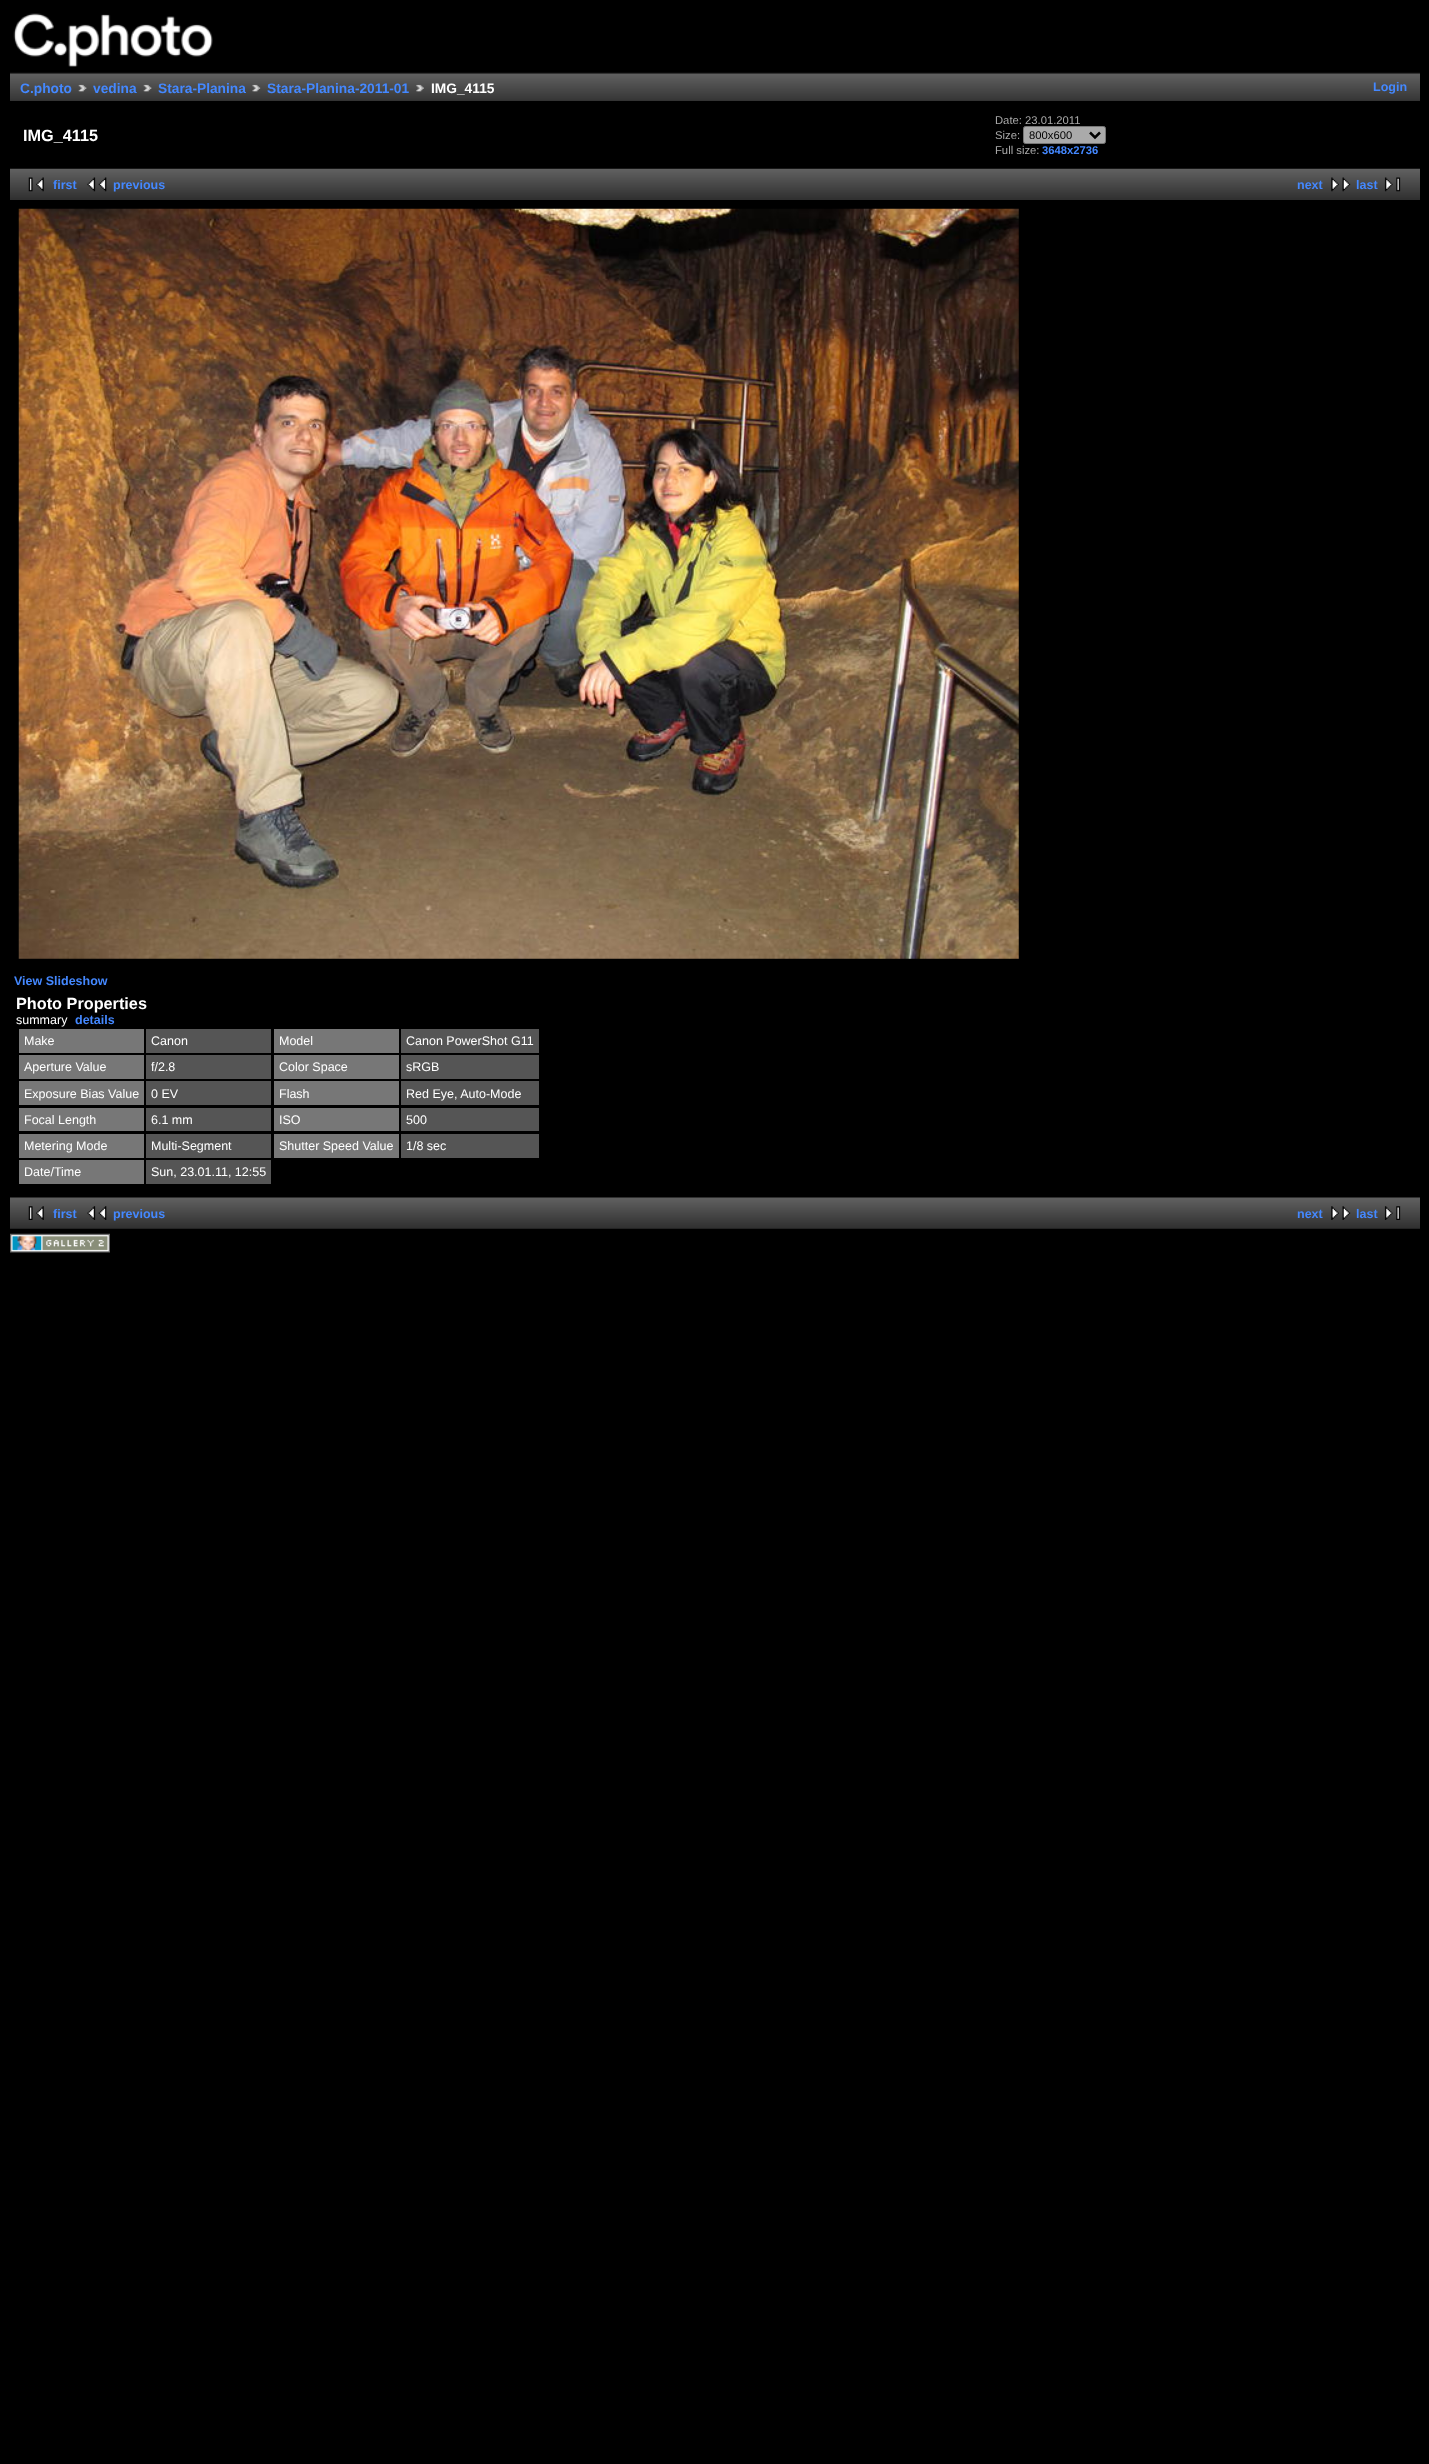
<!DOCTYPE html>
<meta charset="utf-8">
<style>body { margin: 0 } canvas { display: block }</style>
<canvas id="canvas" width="1429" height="2464"></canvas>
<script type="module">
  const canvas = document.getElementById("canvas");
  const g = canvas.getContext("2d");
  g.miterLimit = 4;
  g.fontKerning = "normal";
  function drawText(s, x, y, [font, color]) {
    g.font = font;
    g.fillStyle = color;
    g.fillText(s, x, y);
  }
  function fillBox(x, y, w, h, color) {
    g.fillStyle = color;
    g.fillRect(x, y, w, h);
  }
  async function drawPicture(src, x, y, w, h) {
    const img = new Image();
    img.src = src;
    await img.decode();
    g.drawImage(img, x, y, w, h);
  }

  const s1 = ["bold 13.75px Liberation Sans", "#4488FF"];
  const s2 = ["bold 13.75px Liberation Sans", "#FFFFFF"];
  const s3 = ["bold 12.5px Liberation Sans", "#4488FF"];
  const s4 = ["bold 16.25px Liberation Sans", "#FFFFFF"];
  const s5 = ["11.25px Liberation Sans", "#AAAAAA"];
  const s6 = ["11.25px Liberation Sans", "#000000"];
  const s7 = ["bold 11.25px Liberation Sans", "#4488FF"];
  const s8 = ["12.5px Liberation Sans", "#FFFFFF"];

  fillBox(0, 0, 1429, 2464, "#000000");
  await drawPicture("pic1.png", 13, 13, 200, 54);
  await drawPicture("pic2.png", 10, 72, 1410, 28);
  fillBox(10, 73, 1410, 1, "#333333");
  fillBox(10, 100, 1410, 1, "#333333");
  drawText("C.photo", 20, 93, s1);
  await drawPicture("pic3.png", 78, 84, 9, 8);
  drawText("vedina", 93, 93, s1);
  await drawPicture("pic3.png", 143, 84, 9, 8);
  drawText("Stara-Planina", 158, 93, s1);
  await drawPicture("pic4.png", 252, 84, 9, 8);
  drawText("Stara-Planina-2011-01", 267, 93, s1);
  await drawPicture("pic5.png", 416, 84, 8, 8);
  drawText("IMG_4115", 431, 93, s2);
  drawText("Login", 1373, 91, s3);
  drawText("IMG_4115", 23, 141, s4);
  drawText("Date: 23.01.2011", 995, 124, s5);
  drawText("Size:", 995, 139, s5);
  g.beginPath();
  g.roundRect(1023.5, 126.5, 82, 17, 2);
  g.fill();
  g.strokeStyle = "#767676";
  g.stroke();
  g.beginPath();
  g.moveTo(1090, 132.5);
  g.lineTo(1095, 137.5);
  g.lineTo(1100, 132.5);
  g.strokeStyle = "#000000";
  g.lineWidth = 2.5;
  g.stroke();
  drawText("800x600", 1029, 139, s6);
  drawText("Full size:", 995, 154, s5);
  drawText("3648x2736", 1042, 154, s7);
  await drawPicture("pic6.png", 10, 168, 1410, 32);
  await drawPicture("pic7.png", 28, 177, 16, 15);
  drawText("first", 53, 189, s3);
  await drawPicture("pic8.png", 87, 177, 20, 15);
  drawText("previous", 113, 189, s3);
  drawText("next", 1297, 189, s3);
  await drawPicture("pic9.png", 1331, 177, 20, 15);
  drawText("last", 1356, 189, s3);
  await drawPicture("pic10.png", 1384, 177, 17, 15);
  await drawPicture("pic11.png", 18, 208, 1001, 751);
  drawText("View Slideshow", 14, 985, s3);
  drawText("Photo Properties", 16, 1009, s4);
  drawText("summary", 16, 1024, s8);
  drawText("details", 75, 1024, s3);
  fillBox(19, 1029, 125, 24, "#777777");
  drawText("Make", 24, 1045, s8);
  fillBox(146, 1029, 125, 24, "#555555");
  drawText("Canon", 151, 1045, s8);
  fillBox(274, 1029, 125, 24, "#777777");
  drawText("Model", 279, 1045, s8);
  fillBox(401, 1029, 138, 24, "#555555");
  drawText("Canon PowerShot G11", 406, 1045, s8);
  fillBox(19, 1055, 125, 24, "#777777");
  drawText("Aperture Value", 24, 1071, s8);
  fillBox(146, 1055, 125, 24, "#555555");
  drawText("f/2.8", 151, 1071, s8);
  fillBox(274, 1055, 125, 24, "#777777");
  drawText("Color Space", 279, 1071, s8);
  fillBox(401, 1055, 138, 24, "#555555");
  drawText("sRGB", 406, 1071, s8);
  fillBox(19, 1081, 125, 24, "#777777");
  drawText("Exposure Bias Value", 24, 1098, s8);
  fillBox(146, 1081, 125, 24, "#555555");
  drawText("0 EV", 151, 1098, s8);
  fillBox(274, 1081, 125, 24, "#777777");
  drawText("Flash", 279, 1098, s8);
  fillBox(401, 1081, 138, 24, "#555555");
  drawText("Red Eye, Auto-Mode", 406, 1098, s8);
  fillBox(19, 1108, 125, 23, "#777777");
  drawText("Focal Length", 24, 1124, s8);
  fillBox(146, 1108, 125, 23, "#555555");
  drawText("6.1 mm", 151, 1124, s8);
  fillBox(274, 1108, 125, 23, "#777777");
  drawText("ISO", 279, 1124, s8);
  fillBox(401, 1108, 138, 23, "#555555");
  drawText("500", 406, 1124, s8);
  fillBox(19, 1134, 125, 24, "#777777");
  drawText("Metering Mode", 24, 1150, s8);
  fillBox(146, 1134, 125, 24, "#555555");
  drawText("Multi-Segment", 151, 1150, s8);
  fillBox(274, 1134, 125, 24, "#777777");
  drawText("Shutter Speed Value", 279, 1150, s8);
  fillBox(401, 1134, 138, 24, "#555555");
  drawText("1/8 sec", 406, 1150, s8);
  fillBox(19, 1160, 125, 24, "#777777");
  drawText("Date/Time", 24, 1176, s8);
  fillBox(146, 1160, 125, 24, "#555555");
  drawText("Sun, 23.01.11, 12:55", 151, 1176, s8);
  await drawPicture("pic12.png", 10, 1197, 1410, 32);
  await drawPicture("pic13.png", 28, 1206, 16, 14);
  drawText("first", 53, 1218, s3);
  await drawPicture("pic14.png", 87, 1206, 20, 14);
  drawText("previous", 113, 1218, s3);
  drawText("next", 1297, 1218, s3);
  await drawPicture("pic15.png", 1331, 1206, 20, 14);
  drawText("last", 1356, 1218, s3);
  await drawPicture("pic16.png", 1384, 1206, 17, 14);
  await drawPicture("pic17.png", 10, 1233, 100, 20);
</script>
